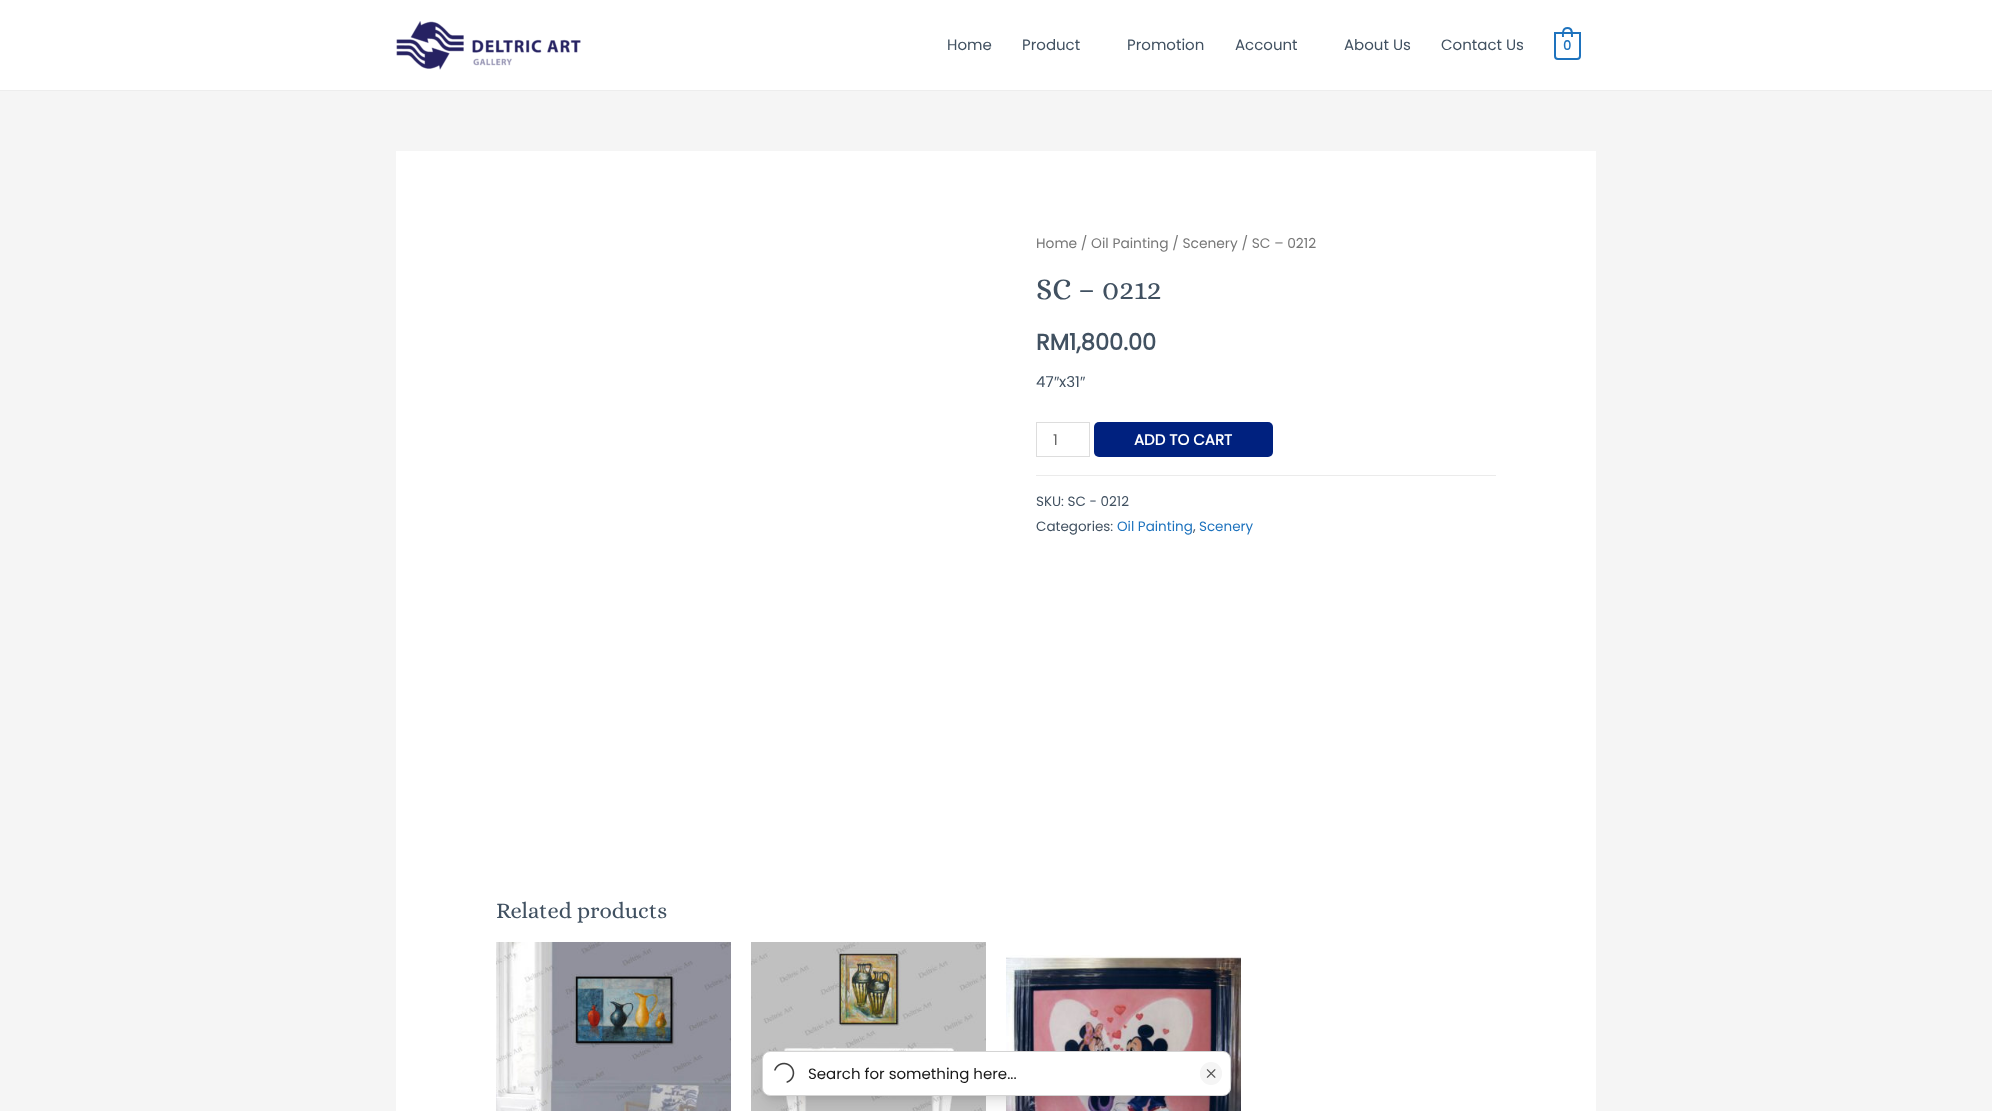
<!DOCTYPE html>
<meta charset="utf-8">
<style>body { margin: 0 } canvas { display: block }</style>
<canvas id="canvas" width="1992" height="1111"></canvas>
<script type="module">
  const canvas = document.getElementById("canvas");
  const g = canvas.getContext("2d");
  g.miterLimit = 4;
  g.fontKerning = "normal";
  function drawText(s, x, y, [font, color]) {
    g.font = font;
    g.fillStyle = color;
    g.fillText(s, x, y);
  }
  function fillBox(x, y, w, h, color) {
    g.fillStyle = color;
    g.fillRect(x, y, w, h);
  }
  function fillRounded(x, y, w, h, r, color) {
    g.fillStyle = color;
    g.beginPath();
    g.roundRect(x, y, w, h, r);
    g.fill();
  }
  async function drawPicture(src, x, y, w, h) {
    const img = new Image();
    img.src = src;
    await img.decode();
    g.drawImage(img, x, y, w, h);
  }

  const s1 = ["15px Poppins", "#415161"];
  const s2 = ["bold 13px Poppins", "#1E73BE"];
  const s3 = ["13.8px Poppins", "#777777"];
  const s4 = ["30px Alice", "#415161"];
  const s5 = ["bold 22.5px Poppins", "#415161"];
  const s6 = ["15px Liberation Sans", "#415161"];
  const s7 = ["15px Poppins", "#666666"];
  const s8 = ["bold 15px Poppins", "#FFFFFF"];
  const s9 = ["13.5px Poppins", "#415161"];
  const s10 = ["13.5px Poppins", "#1E73BE"];
  const s11 = ["22.5px Alice", "#415161"];
  const s12 = ["15px Poppins", "#171717"];

  fillBox(0, 0, 1992, 1111, "#F5F5F5");
  fillBox(0, 0, 1992, 90, "#FFFFFF");
  fillBox(0, 90, 1992, 1, "#EDEDED");
  await drawPicture("pic1.png", 396, 21, 185, 49);
  drawText("Home", 947, 50, s1);
  drawText("Product", 1022, 50, s1);
  drawText("Promotion", 1127, 50, s1);
  drawText("Account", 1235, 50, s1);
  drawText("About Us", 1344, 50, s1);
  drawText("Contact Us", 1441, 50, s1);
  g.beginPath();
  g.roundRect(1555, 33, 25, 26, [0, 0, 3, 3]);
  g.strokeStyle = "#1E73BE";
  g.lineWidth = 2;
  g.stroke();
  g.fillStyle = "#1E73BE";
  g.beginPath();
  g.moveTo(1567.5, 27);
  g.bezierCurveTo(1573.5, 27, 1573, 33, 1573, 37);
  g.lineTo(1562, 37);
  g.bezierCurveTo(1562, 33, 1561.5, 27, 1567.5, 27);
  g.closePath();
  g.moveTo(1567.5, 29);
  g.bezierCurveTo(1571.5, 29, 1571, 34, 1571, 37);
  g.lineTo(1564, 37);
  g.bezierCurveTo(1564, 34, 1563, 29, 1567.5, 29);
  g.closePath();
  g.fill("evenodd");
  drawText("0", 1563, 50, s2);
  fillBox(396, 151, 1200, 960, "#FFFFFF");
  drawText("Home / Oil Painting / Scenery / SC – 0212", 1036, 248, s3);
  drawText("SC – 0212", 1036, 299, s4);
  drawText("RM1,800.00", 1036, 350, s5);
  drawText("47", 1036, 387, s1);
  drawText("″", 1054, 387, s6);
  drawText("x31", 1059, 387, s1);
  drawText("″", 1080, 387, s6);
  g.strokeStyle = "#DDDDDD";
  g.lineWidth = 1;
  g.strokeRect(1036.5, 422.5, 53, 34);
  drawText("1", 1053, 445, s7);
  fillRounded(1094, 422, 179, 35, 5, "#00217F");
  drawText("ADD TO CART", 1134, 445, s8);
  fillBox(1036, 475, 460, 1, "#EBEBEB");
  drawText("SKU: SC - 0212", 1036, 506, s9);
  drawText("Categories:", 1036, 531, s9);
  drawText("Oil Painting", 1117, 531, s10);
  drawText(",", 1193, 531, s9);
  drawText("Scenery", 1199, 531, s10);
  drawText("Related products", 496, 918, s11);
  await drawPicture("pic2.png", 496, 942, 235, 169);
  await drawPicture("pic3.png", 751, 942, 235, 169);
  await drawPicture("pic4.png", 1006, 955, 235, 156);
  g.fillStyle = "rgba(0, 0, 0, 0.1)";
  g.filter = "blur(3px)";
  g.beginPath();
  g.roundRect(766, 1059, 461, 37, 4);
  g.fill();
  g.filter = "none";
  g.filter = "blur(7.5px)";
  g.beginPath();
  g.roundRect(765, 1064, 463, 39, 5);
  g.fill();
  g.filter = "none";
  g.fillStyle = "#FFFFFF";
  g.beginPath();
  g.roundRect(762.5, 1051.5, 468, 44, 7.5);
  g.fill();
  g.strokeStyle = "#D4D4D4";
  g.stroke();
  await drawPicture("pic5.png", 774, 1062, 21, 21);
  drawText("Search for something here...", 808, 1079, s12);
  fillRounded(1200, 1062, 22, 23, 11, "#F5F5F5");
  await drawPicture("pic6.png", 1206, 1069, 10, 9);
</script>
